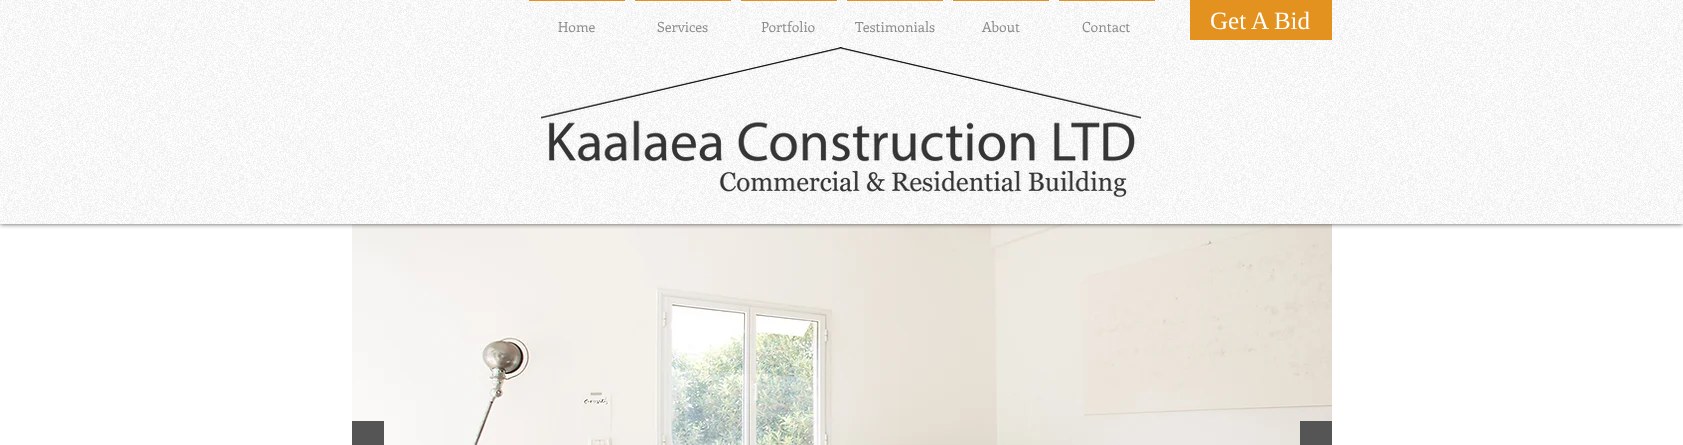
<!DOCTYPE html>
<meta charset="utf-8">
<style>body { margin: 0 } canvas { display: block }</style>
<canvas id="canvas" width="1683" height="445"></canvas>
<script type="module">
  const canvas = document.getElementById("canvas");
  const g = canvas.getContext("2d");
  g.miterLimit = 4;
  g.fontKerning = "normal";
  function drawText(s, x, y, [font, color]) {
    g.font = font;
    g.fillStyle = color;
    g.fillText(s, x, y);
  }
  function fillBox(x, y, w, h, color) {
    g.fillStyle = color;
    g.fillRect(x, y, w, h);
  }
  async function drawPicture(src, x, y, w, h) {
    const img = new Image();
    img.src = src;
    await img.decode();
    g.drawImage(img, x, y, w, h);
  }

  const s1 = ["14px Enriqueta", "#8B8B8B"];
  const s2 = ["25px Liberation Serif", "#FFFFFF"];

  fillBox(0, 0, 1683, 445, "#FFFFFF");
  await drawPicture("pic3.png", 352, 224, 980, 221);
  g.save();
  g.beginPath();
  g.rect(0, 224, 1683, 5);
  g.clip();
  g.fillStyle = "rgba(0, 0, 0, 0.7)";
  g.filter = "blur(2.5px)";
  g.beginPath();
  g.rect(0, 0, 1683, 224);
  g.fill();
  g.filter = "none";
  g.restore();
  await drawPicture("pic1.png", 0, 0, 1683, 224);
  fillBox(529, 0, 96, 1, "#E39220");
  drawText("Home", 558, 32, s1);
  fillBox(635, 0, 96, 1, "#E39220");
  drawText("Services", 657, 32, s1);
  fillBox(741, 0, 96, 1, "#E39220");
  drawText("Portfolio", 761, 32, s1);
  fillBox(847, 0, 96, 1, "#E39220");
  drawText("Testimonials", 855, 32, s1);
  fillBox(953, 0, 96, 1, "#E39220");
  drawText("About", 982, 32, s1);
  fillBox(1059, 0, 96, 1, "#E39220");
  drawText("Contact", 1082, 32, s1);
  fillBox(1190, 0, 142, 40, "#E39220");
  drawText("Get A Bid", 1210, 29, s2);
  await drawPicture("pic2.png", 541, 47, 600, 151);
  fillBox(352, 421, 32, 24, "#555555");
  fillBox(1300, 421, 32, 24, "#555555");
</script>
